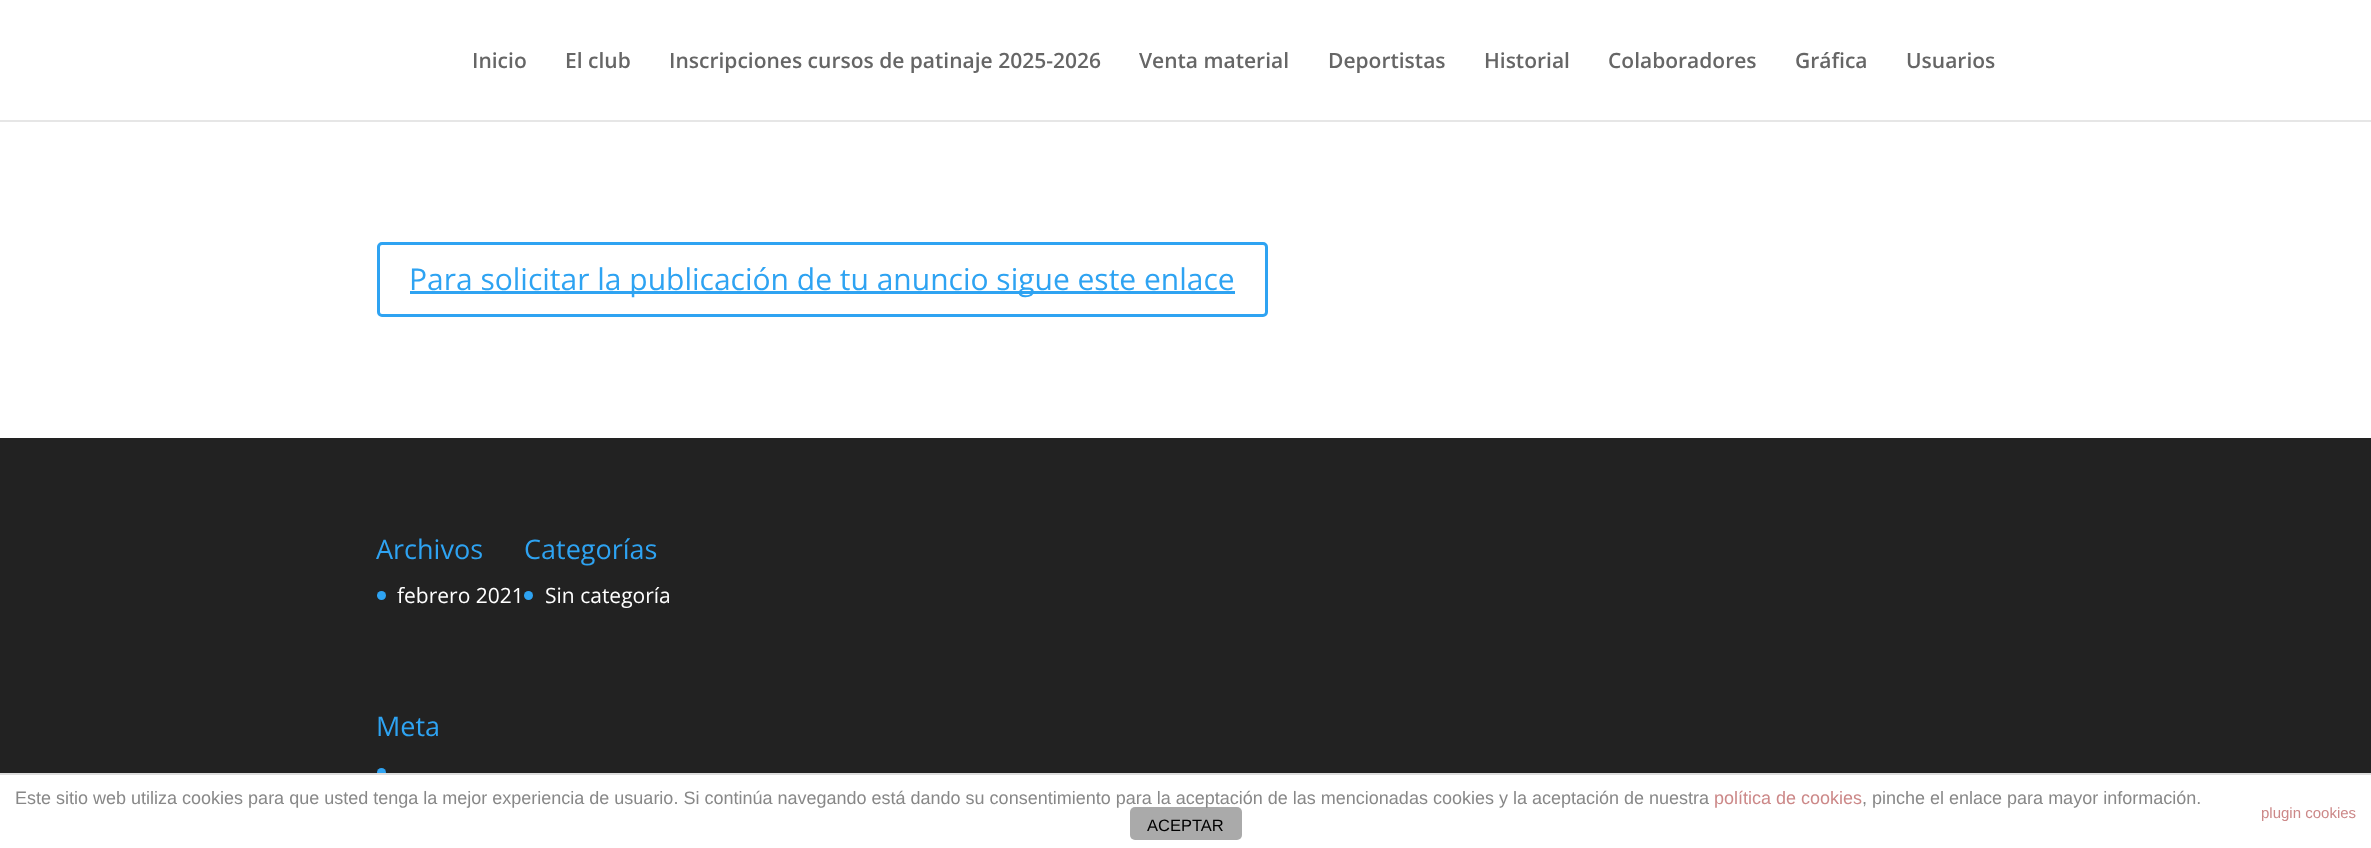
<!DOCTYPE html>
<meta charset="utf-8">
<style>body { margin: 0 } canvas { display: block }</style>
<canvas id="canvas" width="2371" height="848"></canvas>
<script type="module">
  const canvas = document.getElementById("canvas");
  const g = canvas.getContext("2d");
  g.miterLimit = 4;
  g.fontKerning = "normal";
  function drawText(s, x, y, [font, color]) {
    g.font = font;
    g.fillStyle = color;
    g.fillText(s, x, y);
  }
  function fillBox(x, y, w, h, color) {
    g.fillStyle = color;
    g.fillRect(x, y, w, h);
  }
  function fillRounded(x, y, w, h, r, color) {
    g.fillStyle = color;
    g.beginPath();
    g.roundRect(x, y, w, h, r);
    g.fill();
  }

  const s1 = ["600 21px Open Sans", "#666666"];
  const s2 = ["30px Open Sans", "#2EA3F2"];
  const s3 = ["27px Open Sans", "#2EA3F2"];
  const s4 = ["21px Open Sans", "#FFFFFF"];
  const s5 = ["18px Liberation Sans", "#888888"];
  const s6 = ["18px Liberation Sans", "#CC8888"];
  const s7 = ["15px Liberation Sans", "#CC8888"];
  const s8 = ["16.5px Liberation Sans", "#000000"];

  fillBox(0, 0, 2371, 848, "#FFFFFF");
  g.fillStyle = "#E6E6E6";
  g.beginPath();
  g.moveTo(0, 120);
  g.lineTo(0, 122);
  g.lineTo(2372, 122);
  g.lineTo(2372, 2);
  g.lineTo(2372, 120);
  g.closePath();
  g.fill();
  drawText("Inicio", 472, 68, s1);
  drawText("El club", 565, 68, s1);
  drawText("Inscripciones cursos de patinaje 2025-2026", 669, 68, s1);
  drawText("Venta material", 1139, 68, s1);
  drawText("Deportistas", 1328, 68, s1);
  drawText("Historial", 1484, 68, s1);
  drawText("Colaboradores", 1608, 68, s1);
  drawText("Gráfica", 1795, 68, s1);
  drawText("Usuarios", 1906, 68, s1);
  g.beginPath();
  g.roundRect(378.5, 243.5, 888, 72, 3.5);
  g.strokeStyle = "#2EA3F2";
  g.lineWidth = 3;
  g.stroke();
  fillBox(410, 291, 825, 3, "#2EA3F2");
  drawText("Para solicitar la publicación de tu anuncio sigue este enlace", 409, 290, s2);
  fillBox(0, 438, 2371, 335, "#222222");
  drawText("Archivos", 376, 559, s3);
  g.beginPath();
  g.arc(381.5, 595.5, 4.5, 0, Math.PI * 2);
  g.fill();
  drawText("febrero 2021", 397, 603, s4);
  drawText("Categorías", 524, 559, s3);
  g.beginPath();
  g.arc(528.5, 595.5, 4.5, 0, Math.PI * 2);
  g.fill();
  drawText("Sin categoría", 545, 603, s4);
  drawText("Meta", 376, 736, s3);
  g.beginPath();
  g.arc(381.5, 772.5, 4.5, 0, Math.PI * 2);
  g.fill();
  fillBox(377, 775, 9, 2, "#FFFFFF");
  fillBox(0, 773, 2371, 2, "#DDDDDD");
  fillRounded(1130, 807, 112, 33, 5, "#AAAAAA");
  drawText("Este sitio web utiliza cookies para que usted tenga la mejor experiencia de usuario. Si continúa navegando está dando su consentimiento para la aceptación de las mencionadas cookies y la aceptación de nuestra", 15, 804, s5);
  drawText("política de cookies", 1714, 804, s6);
  drawText(", pinche el enlace para mayor información.", 1862, 804, s5);
  drawText("plugin cookies", 2261, 818, s7);
  drawText("ACEPTAR", 1147, 831, s8);
</script>
